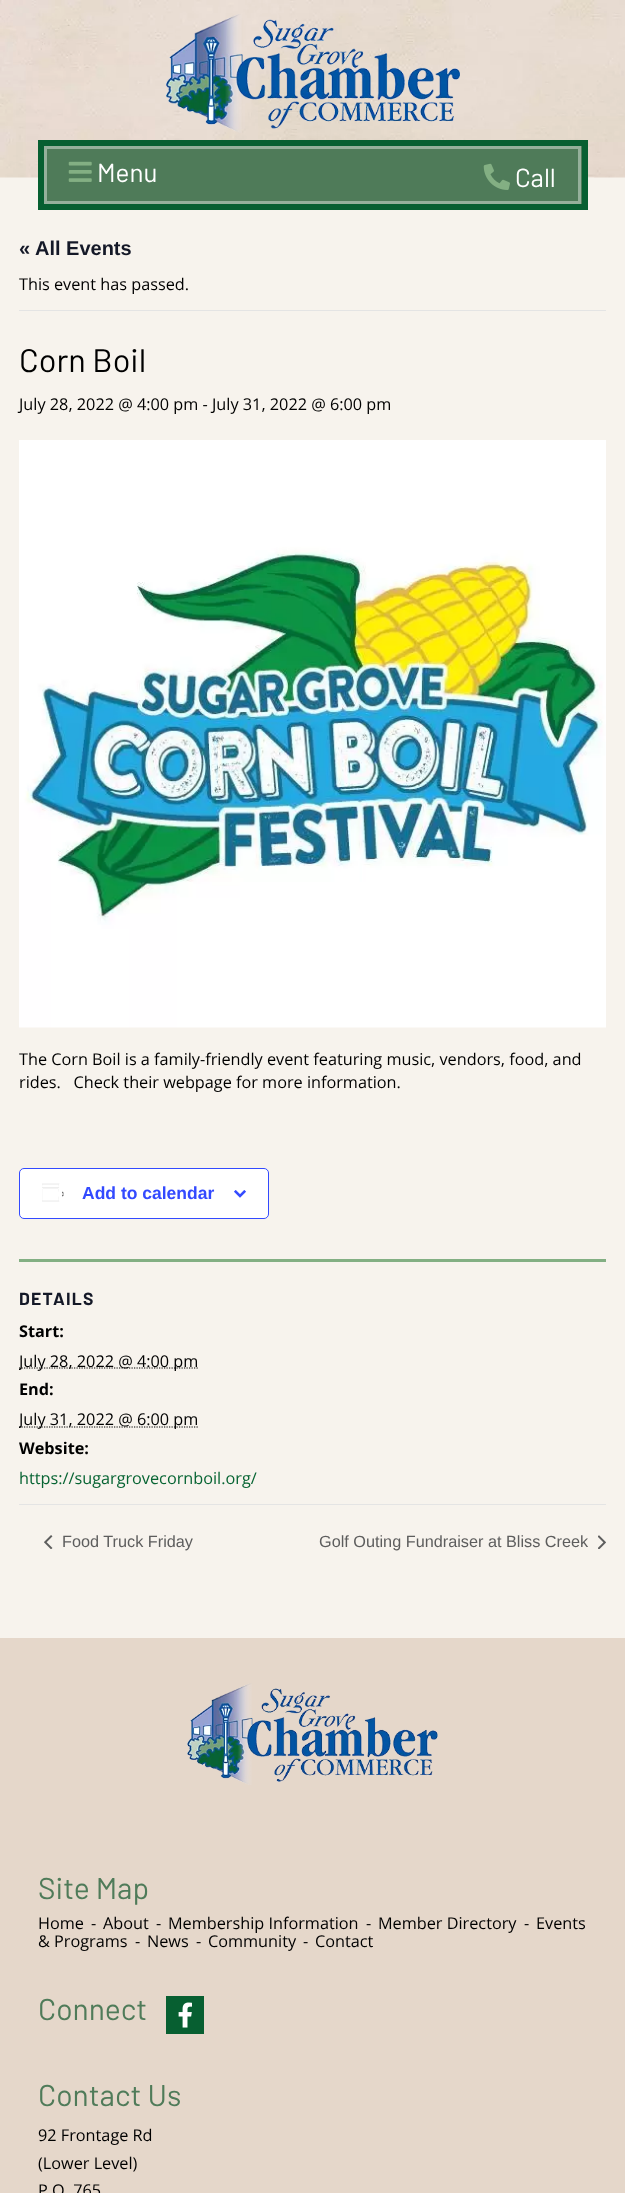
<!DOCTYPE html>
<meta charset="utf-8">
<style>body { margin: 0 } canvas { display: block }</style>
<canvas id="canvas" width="625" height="2193"></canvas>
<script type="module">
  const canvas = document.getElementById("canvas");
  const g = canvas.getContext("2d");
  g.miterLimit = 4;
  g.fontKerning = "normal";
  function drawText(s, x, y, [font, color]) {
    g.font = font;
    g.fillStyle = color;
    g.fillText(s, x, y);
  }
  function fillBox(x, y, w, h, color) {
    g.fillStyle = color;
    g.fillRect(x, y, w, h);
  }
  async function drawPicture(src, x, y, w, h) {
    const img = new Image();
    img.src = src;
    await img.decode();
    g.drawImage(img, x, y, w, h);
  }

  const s1 = ["26px Barlow", "#FFFFFF"];
  const s2 = ["bold 20px Liberation Sans", "#141827"];
  const s3 = ["16.25px Open Sans", "#000000"];
  const s4 = ["32.5px Barlow", "#000000"];
  const s5 = ["bold 17.5px Liberation Sans", "#334AFF"];
  const s6 = ["bold 17.5px Barlow", "#141827"];
  const s7 = ["bold 16.25px Open Sans", "#000000"];
  const s8 = ["16.25px Open Sans", "#076433"];
  const s9 = ["16.25px Liberation Sans", "#5D5D5D"];
  const s10 = ["30px Barlow", "#4F7B59"];

  fillBox(0, 0, 625, 2193, "#E5D7CA");
  fillBox(0, 177, 625, 1461, "#F7F3ED");
  await drawPicture("pic1.png", 0, 0, 625, 178);
  await drawPicture("pic2.png", 166, 14, 294, 119);
  fillBox(47, 146, 535, 58, "#4F7B59");
  g.strokeStyle = "#95B09B";
  g.lineWidth = 3;
  g.strokeRect(45.5, 147.5, 534, 55);
  g.strokeStyle = "#075F31";
  g.lineWidth = 6;
  g.strokeRect(41, 143, 544, 64);
  await drawPicture("pic3.png", 68, 161, 24, 21);
  drawText("Menu", 97, 182, s1);
  await drawPicture("pic4.png", 483, 163, 27, 27);
  drawText("Call", 515, 187, s1);
  drawText("« All Events", 19, 255, s2);
  fillBox(19, 310, 587, 1, "#E4E4E4");
  drawText("This event has passed.", 19, 290, s3);
  drawText("Corn Boil", 19, 372, s4);
  drawText("July 28, 2022 @ 4:00 pm - July 31, 2022 @ 6:00 pm", 19, 410, s3);
  await drawPicture("pic5.png", 19, 440, 587, 588);
  drawText("The Corn Boil is a family-friendly event featuring music, vendors, food, and", 19, 1065, s3);
  drawText("rides.   Check their webpage for more information.", 19, 1088, s3);
  g.fillStyle = "#FFFFFF";
  g.beginPath();
  g.roundRect(19.5, 1168.5, 249, 50, 4.5);
  g.fill();
  g.strokeStyle = "#334AFF";
  g.lineWidth = 1;
  g.stroke();
  await drawPicture("pic6.png", 42, 1183, 22, 19);
  drawText("Add to calendar", 82, 1199, s5);
  await drawPicture("pic7.png", 234, 1190, 12, 8);
  fillBox(19, 1259, 587, 3, "#83AF83");
  g.letterSpacing = "1.25px";
  drawText("DETAILS", 19, 1305, s6);
  g.letterSpacing = "0px";
  drawText("Start:", 19, 1337, s7);
  g.beginPath();
  g.moveTo(19, 1368);
  g.lineTo(198, 1368);
  g.strokeStyle = "#000000";
  g.lineWidth = 1.2;
  g.setLineDash([1.25, 1.25]);
  g.stroke();
  g.save();
  g.beginPath();
  g.rect(19, 440, 587, 1064);
  g.clip();
  drawText("July 28, 2022 @ 4:00 pm", 19, 1367, s3);
  g.restore();
  drawText("End:", 19, 1395, s7);
  g.beginPath();
  g.moveTo(19, 1427);
  g.lineTo(198, 1427);
  g.stroke();
  g.save();
  g.beginPath();
  g.rect(19, 440, 587, 1064);
  g.clip();
  drawText("July 31, 2022 @ 6:00 pm", 19, 1425, s3);
  g.restore();
  drawText("Website:", 19, 1454, s7);
  drawText("https://sugargrovecornboil.org/", 19, 1484, s8);
  fillBox(19, 1504, 587, 1, "#E4E4E4");
  await drawPicture("pic8.png", 44, 1535, 9, 14);
  drawText("Food Truck Friday", 62, 1547, s9);
  drawText("Golf Outing Fundraiser at Bliss Creek", 319, 1547, s9);
  await drawPicture("pic9.png", 598, 1535, 8, 14);
  await drawPicture("pic10.png", 187, 1683, 251, 102);
  drawText("Site Map", 38, 1899, s10);
  drawText("Home", 38, 1929, s3);
  drawText("-", 91, 1929, s3);
  drawText("About", 103, 1929, s3);
  drawText("-", 156, 1929, s3);
  drawText("Membership Information", 168, 1929, s3);
  drawText("-", 366, 1929, s3);
  drawText("Member Directory", 378, 1929, s3);
  drawText("-", 524, 1929, s3);
  drawText("Events", 536, 1929, s3);
  drawText("& Programs", 38, 1947, s3);
  drawText("-", 135, 1947, s3);
  drawText("News", 147, 1947, s3);
  drawText("-", 196, 1947, s3);
  drawText("Community", 208, 1947, s3);
  drawText("-", 303, 1947, s3);
  drawText("Contact", 315, 1947, s3);
  drawText("Connect", 38, 2020, s10);
  fillBox(166, 1996, 38, 38, "#075F31");
  await drawPicture("pic11.png", 178, 2002, 14, 26);
  drawText("Contact Us", 38, 2106, s10);
  drawText("92 Frontage Rd", 38, 2141, s3);
  drawText("(Lower Level)", 38, 2169, s3);
  drawText("P.O. 765", 38, 2196, s3);
</script>
